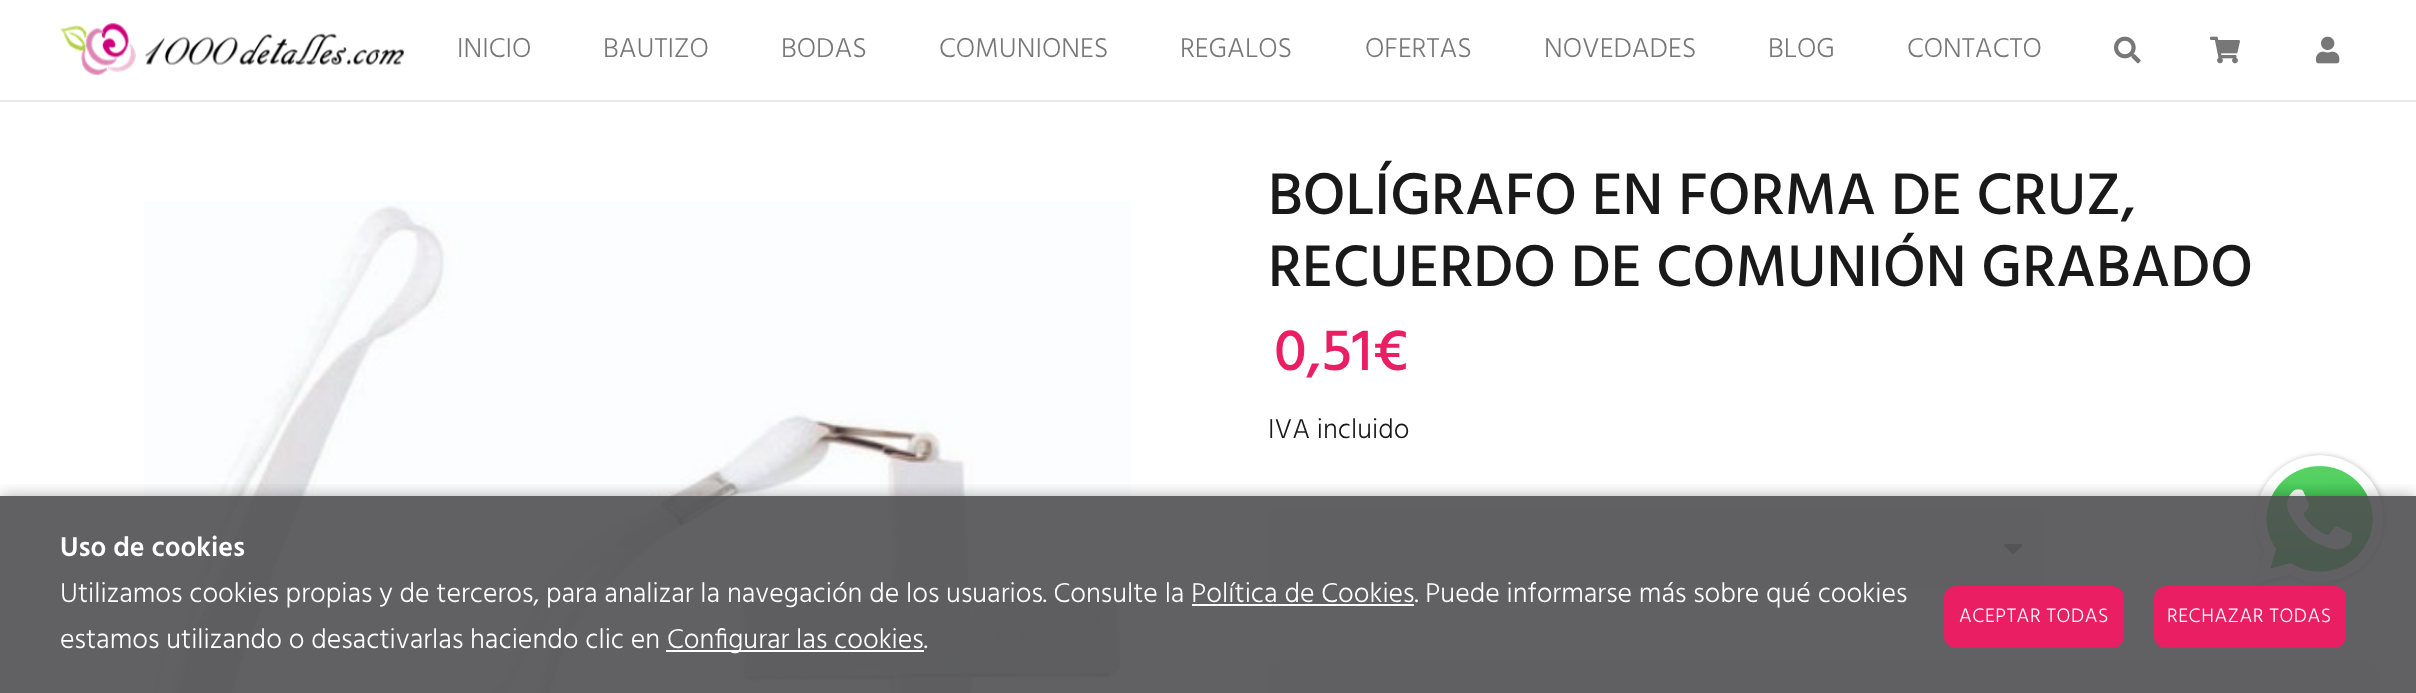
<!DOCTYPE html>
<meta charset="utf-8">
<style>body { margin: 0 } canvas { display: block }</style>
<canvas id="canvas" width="2416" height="693"></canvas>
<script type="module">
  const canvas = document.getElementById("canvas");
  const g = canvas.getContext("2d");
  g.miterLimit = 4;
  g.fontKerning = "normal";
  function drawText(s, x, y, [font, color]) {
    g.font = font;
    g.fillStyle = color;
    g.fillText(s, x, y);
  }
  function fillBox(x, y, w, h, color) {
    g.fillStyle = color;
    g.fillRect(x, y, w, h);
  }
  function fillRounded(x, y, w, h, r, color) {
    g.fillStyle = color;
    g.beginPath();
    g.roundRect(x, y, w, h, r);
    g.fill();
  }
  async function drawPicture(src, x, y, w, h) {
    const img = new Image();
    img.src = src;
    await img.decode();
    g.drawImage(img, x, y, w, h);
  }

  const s1 = ["300 28px Hind", "#777777"];
  const s2 = ["500 60px Hind", "#191919"];
  const s3 = ["500 60px Hind", "#EA1E63"];
  const s4 = ["300 28px Hind", "#191919"];
  const s5 = ["600 28px Hind", "#FFFFFF"];
  const s6 = ["300 28px Hind", "#FFFFFF"];
  const s7 = ["300 20px Hind", "#FFFFFF"];

  fillBox(0, 0, 2416, 693, "#FFFFFF");
  fillBox(0, 100, 2416, 2, "#E7E7E7");
  await drawPicture("pic1.png", 60, 23, 345, 53);
  drawText("INICIO", 457, 57, s1);
  drawText("BAUTIZO", 603, 57, s1);
  drawText("BODAS", 781, 57, s1);
  drawText("COMUNIONES", 939, 57, s1);
  drawText("REGALOS", 1180, 57, s1);
  drawText("OFERTAS", 1365, 57, s1);
  drawText("NOVEDADES", 1544, 57, s1);
  drawText("BLOG", 1768, 57, s1);
  drawText("CONTACTO", 1907, 57, s1);
  await drawPicture("pic2.png", 2114, 36, 27, 28);
  await drawPicture("pic3.png", 2210, 36, 30, 28);
  await drawPicture("pic4.png", 2316, 36, 24, 28);
  await drawPicture("pic5.png", 144, 201, 987, 492);
  drawText("BOLÍGRAFO EN FORMA DE CRUZ,", 1268, 214, s2);
  drawText("RECUERDO DE COMUNIÓN GRABADO", 1268, 286, s2);
  drawText("0,51€", 1274, 370, s3);
  drawText("IVA incluido", 1268, 438, s4);
  fillRounded(1268, 508, 778, 80, 12, "#F2F2F2");
  await drawPicture("pic6.png", 2004, 544, 19, 11);
  g.beginPath();
  g.roundRect(1269, 509, 776, 78, 11);
  g.strokeStyle = "#F2F2F2";
  g.lineWidth = 2;
  g.stroke();
  g.beginPath();
  g.roundRect(1269, 663, 1108, 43, 11);
  g.fill();
  g.stroke();
  await drawPicture("pic7.png", 2252, 451, 137, 136);
  g.save();
  g.beginPath();
  g.rect(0, 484, 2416, 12);
  g.clip();
  g.fillStyle = "rgba(0, 0, 0, 0.3)";
  g.filter = "blur(8px)";
  g.beginPath();
  g.rect(0, 496, 2416, 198);
  g.fill();
  g.filter = "none";
  g.restore();
  fillBox(0, 496, 2416, 197, "rgba(80, 80, 82, 0.9)");
  drawText("Uso de cookies", 60, 556, s5);
  drawText("Utilizamos cookies propias y de terceros, para analizar la navegación de los usuarios. Consulte la Política de Cookies. Puede informarse más sobre qué cookies", 60, 602, s6);
  fillBox(1192, 604, 222, 2, "#FFFFFF");
  drawText("estamos utilizando o desactivarlas haciendo clic en", 60, 648, s6);
  fillBox(666, 650, 258, 2, "#FFFFFF");
  drawText("Configurar las cookies.", 667, 648, s6);
  g.fillStyle = "#EA1E63";
  g.beginPath();
  g.roundRect(1946, 588, 176, 58, 10);
  g.fill();
  g.strokeStyle = "#EA1E63";
  g.lineWidth = 4;
  g.stroke();
  g.letterSpacing = "0.6px";
  drawText("ACEPTAR TODAS", 1959, 622, s7);
  g.fillStyle = "#EA1E63";
  g.beginPath();
  g.roundRect(2156, 588, 188, 58, 10);
  g.fill();
  g.stroke();
  drawText("RECHAZAR TODAS", 2167, 622, s7);
</script>
